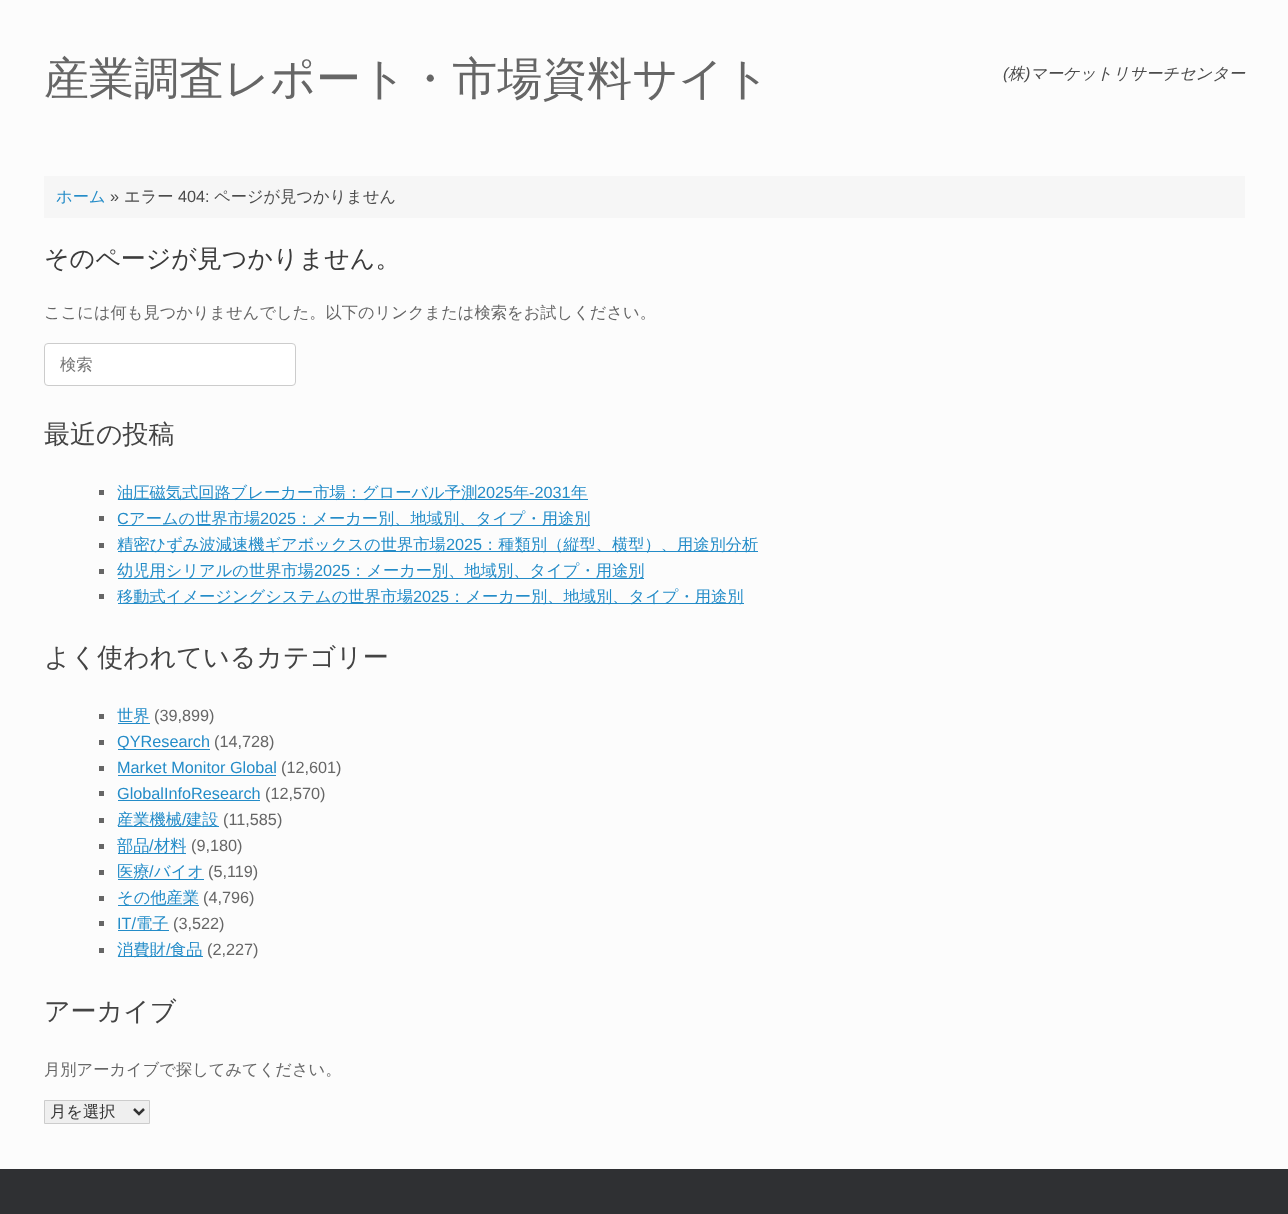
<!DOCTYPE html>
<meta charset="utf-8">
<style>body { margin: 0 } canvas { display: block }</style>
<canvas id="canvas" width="1288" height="1214"></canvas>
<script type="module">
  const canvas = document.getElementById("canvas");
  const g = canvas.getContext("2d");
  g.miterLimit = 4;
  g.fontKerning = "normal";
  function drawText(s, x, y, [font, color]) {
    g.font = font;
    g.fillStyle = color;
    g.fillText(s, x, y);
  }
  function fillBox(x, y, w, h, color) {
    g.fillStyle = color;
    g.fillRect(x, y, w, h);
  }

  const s1 = ["500 45px WenQuanYi Zen Hei", "#666666"];
  const s2 = ["italic 16.25px Liberation Sans", "#4B4B4B"];
  const s3 = ["italic 500 16.25px WenQuanYi Zen Hei", "#4B4B4B"];
  const s4 = ["500 16.25px WenQuanYi Zen Hei", "#248CC8"];
  const s5 = ["16.25px Liberation Sans", "#4B4B4B"];
  const s6 = ["500 16.25px WenQuanYi Zen Hei", "#4B4B4B"];
  const s7 = ["500 25px WenQuanYi Zen Hei", "#3B3B3B"];
  const s8 = ["500 16.25px WenQuanYi Zen Hei", "#666666"];
  const s9 = ["500 16.25px WenQuanYi Zen Hei", "#757575"];
  const s10 = ["500 26px WenQuanYi Zen Hei", "#444444"];
  const s11 = ["16.25px Liberation Sans", "#248CC8"];
  const s12 = ["16.25px Liberation Sans", "#666666"];
  const s13 = ["500 16.25px WenQuanYi Zen Hei", "#333333"];

  fillBox(0, 0, 1288, 1214, "#2F3033");
  fillBox(0, 0, 1288, 1169, "#FCFCFC");
  drawText("産業調査レポート・市場資料サイト", 44, 94, s1);
  drawText("(", 1003, 79, s2);
  drawText("株", 1008, 79, s3);
  drawText("マーケットリサーチセンター", 1030, 79, s3);
  drawText(")", 1025, 79, s2);
  fillBox(44, 176, 1201, 42, "#F6F6F6");
  drawText("ホーム", 56, 202, s4);
  drawText("»", 110, 202, s5);
  drawText("エラー", 124, 202, s6);
  drawText("404:", 178, 202, s5);
  drawText("ページが見つかりません", 214, 202, s6);
  drawText("そのページが見つかりません。", 44, 267, s7);
  drawText("ここには何も見つかりませんでした。以下のリンクまたは検索をお試しください。", 44, 318, s8);
  g.fillStyle = "#FFFFFF";
  g.beginPath();
  g.roundRect(44.5, 343.5, 251, 42, 3.5);
  g.fill();
  g.strokeStyle = "#CCCCCC";
  g.stroke();
  drawText("検索", 60, 370, s9);
  drawText("最近の投稿", 44, 443, s10);
  fillBox(99, 490, 5, 5, "#666666");
  fillBox(118, 499, 470, 1, "#248CC8");
  drawText("油圧磁気式回路ブレーカー市場：グローバル予測", 117, 498, s4);
  drawText("2025", 477, 498, s11);
  drawText("年", 513, 498, s4);
  drawText("-2031", 529, 498, s11);
  drawText("年", 571, 498, s4);
  fillBox(99, 516, 5, 5, "#666666");
  drawText("C", 117, 524, s11);
  fillBox(118, 525, 472, 1, "#248CC8");
  drawText("アームの世界市場", 129, 524, s4);
  drawText("2025", 260, 524, s11);
  drawText("：メーカー別、地域別、タイプ・用途別", 296, 524, s4);
  fillBox(99, 543, 5, 5, "#666666");
  fillBox(118, 551, 640, 1, "#248CC8");
  drawText("精密ひずみ波減速機ギアボックスの世界市場", 117, 550, s4);
  drawText("2025", 446, 550, s11);
  drawText("：種類別（縦型、横型）、用途別分析", 482, 550, s4);
  fillBox(99, 569, 5, 5, "#666666");
  fillBox(118, 578, 526, 1, "#248CC8");
  drawText("幼児用シリアルの世界市場", 117, 576, s4);
  drawText("2025", 314, 576, s11);
  drawText("：メーカー別、地域別、タイプ・用途別", 350, 576, s4);
  fillBox(99, 594, 5, 5, "#666666");
  fillBox(118, 603, 626, 1, "#248CC8");
  drawText("移動式イメージングシステムの世界市場", 117, 602, s4);
  drawText("2025", 413, 602, s11);
  drawText("：メーカー別、地域別、タイプ・用途別", 449, 602, s4);
  drawText("よく使われているカテゴリー", 44, 666, s10);
  fillBox(99, 714, 5, 5, "#666666");
  fillBox(118, 723, 32, 1, "#248CC8");
  drawText("世界", 117, 721, s4);
  drawText("(39,899)", 154, 721, s12);
  fillBox(99, 740, 5, 5, "#666666");
  fillBox(118, 749, 92, 1, "#248CC8");
  drawText("QYResearch", 117, 747, s11);
  drawText("(14,728)", 214, 747, s12);
  fillBox(99, 766, 5, 5, "#666666");
  drawText("Market Monitor Global", 117, 773, s11);
  fillBox(118, 775, 158, 1, "#248CC8");
  drawText("(12,601)", 281, 773, s12);
  fillBox(99, 791, 5, 5, "#666666");
  drawText("GlobalInfoResearch", 117, 799, s11);
  fillBox(118, 800, 142, 1, "#248CC8");
  drawText("(12,570)", 265, 799, s12);
  fillBox(99, 818, 5, 5, "#666666");
  fillBox(118, 826, 101, 1, "#248CC8");
  drawText("産業機械", 117, 825, s4);
  drawText("/", 182, 825, s11);
  drawText("建設", 186, 825, s4);
  drawText("(11,585)", 223, 825, s12);
  fillBox(99, 844, 5, 5, "#666666");
  fillBox(118, 853, 68, 1, "#248CC8");
  drawText("部品", 117, 851, s4);
  drawText("/", 149, 851, s11);
  drawText("材料", 154, 851, s4);
  drawText("(9,180)", 191, 851, s12);
  fillBox(99, 870, 5, 5, "#666666");
  drawText("医療", 117, 877, s4);
  drawText("/", 149, 877, s11);
  fillBox(118, 879, 86, 1, "#248CC8");
  drawText("バイオ", 154, 877, s4);
  drawText("(5,119)", 208, 877, s12);
  fillBox(99, 896, 5, 5, "#666666");
  fillBox(118, 905, 81, 1, "#248CC8");
  drawText("その他産業", 117, 903, s4);
  drawText("(4,796)", 203, 903, s12);
  fillBox(99, 921, 5, 5, "#666666");
  drawText("IT/", 117, 929, s11);
  fillBox(118, 930, 51, 1, "#248CC8");
  drawText("電子", 136, 929, s4);
  drawText("(3,522)", 173, 929, s12);
  fillBox(99, 948, 5, 5, "#666666");
  fillBox(118, 956, 85, 1, "#248CC8");
  drawText("消費財", 117, 955, s4);
  drawText("/", 166, 955, s11);
  drawText("食品", 170, 955, s4);
  drawText("(2,227)", 207, 955, s12);
  drawText("アーカイブ", 44, 1020, s10);
  drawText("月別アーカイブで探してみてください。", 44, 1075, s8);
  g.fillStyle = "#EFEFEF";
  g.beginPath();
  g.rect(44.5, 1100.5, 105, 23);
  g.fill();
  g.stroke();
  g.beginPath();
  g.moveTo(134, 1109);
  g.lineTo(139, 1114);
  g.lineTo(144, 1109);
  g.strokeStyle = "#333333";
  g.lineWidth = 2.5;
  g.stroke();
  drawText("月を選択", 50, 1117, s13);
</script>
